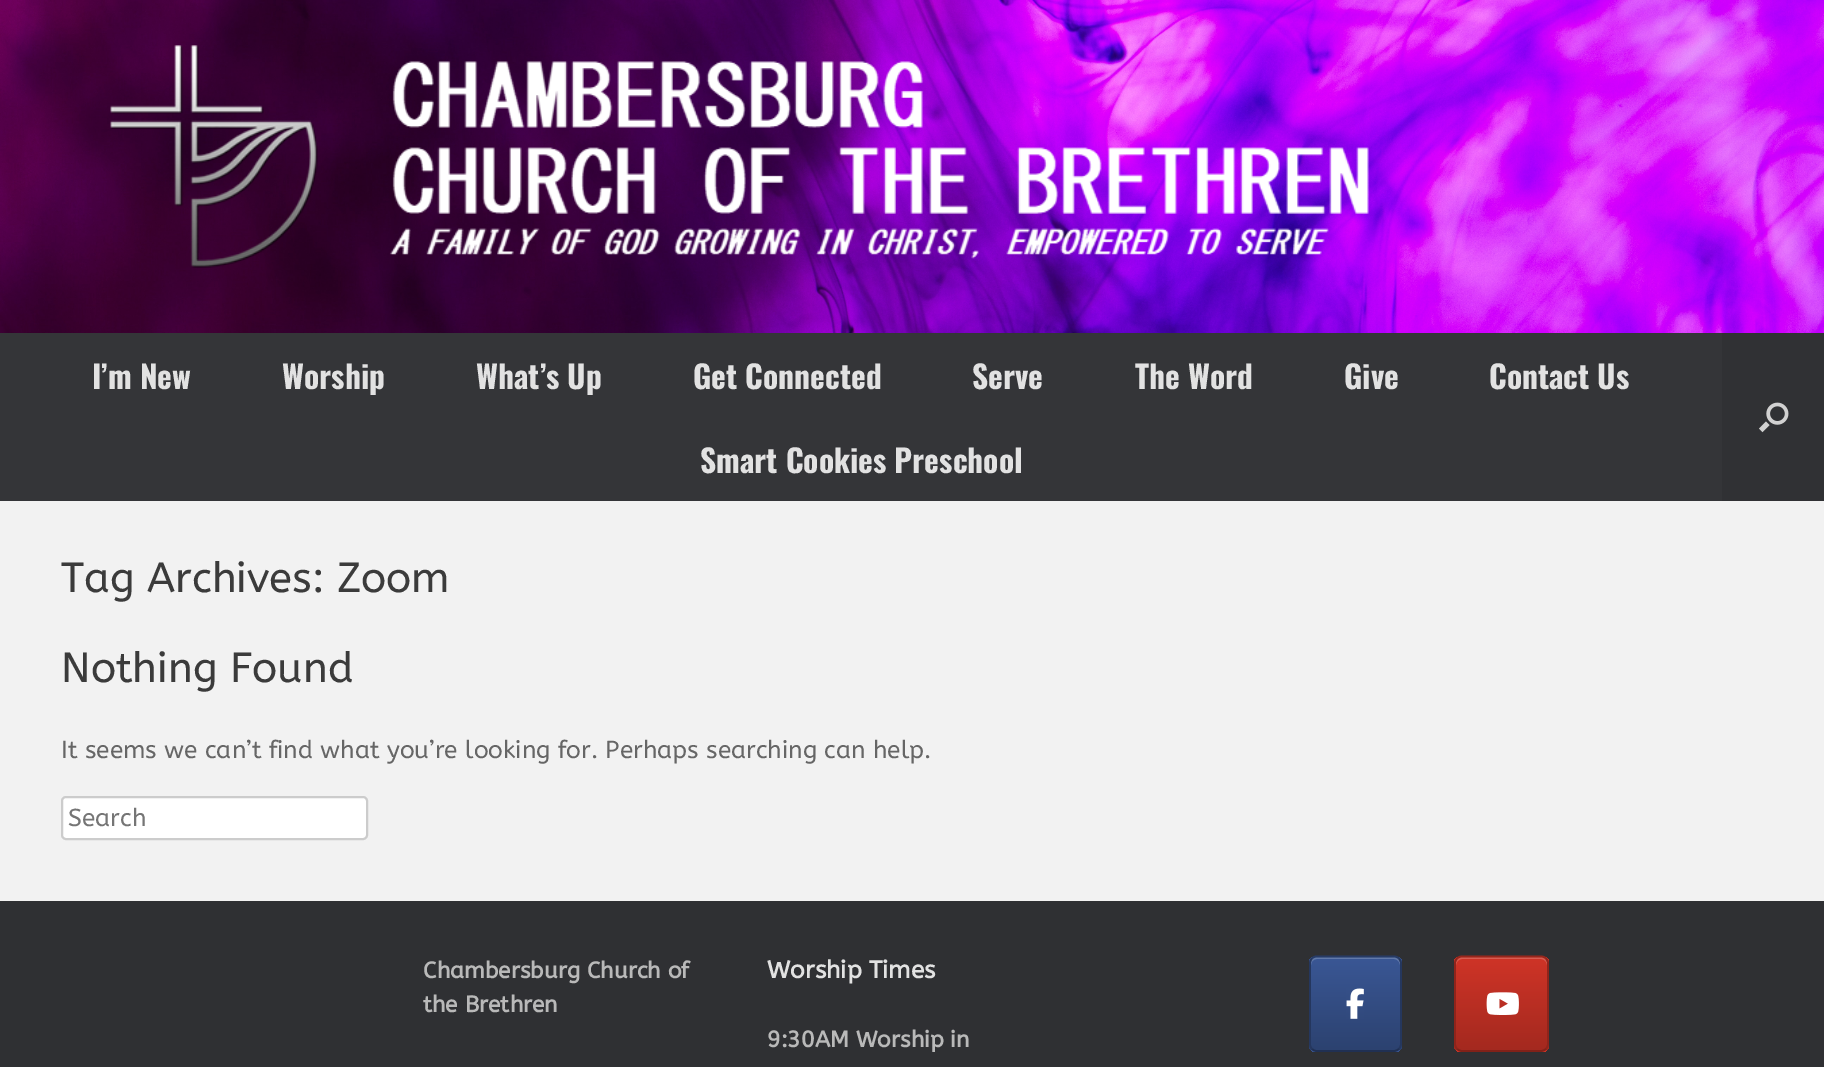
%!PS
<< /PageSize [1824 1067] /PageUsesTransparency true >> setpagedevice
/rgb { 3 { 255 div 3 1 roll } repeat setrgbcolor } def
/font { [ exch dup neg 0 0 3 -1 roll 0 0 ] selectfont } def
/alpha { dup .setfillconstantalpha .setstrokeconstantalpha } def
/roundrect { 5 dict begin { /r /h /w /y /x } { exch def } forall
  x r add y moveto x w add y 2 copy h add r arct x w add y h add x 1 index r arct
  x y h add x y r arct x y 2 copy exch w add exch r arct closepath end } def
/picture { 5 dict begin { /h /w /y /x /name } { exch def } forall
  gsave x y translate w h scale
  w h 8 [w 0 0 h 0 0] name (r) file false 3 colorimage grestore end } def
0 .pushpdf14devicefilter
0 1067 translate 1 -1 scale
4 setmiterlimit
255 255 255 rgb
0 0 1824 1067 rectfill
(img/1.rgb) 0 0 1824 333 picture
(img/2.rgb) 110 45 1259 223 picture
52 53 56 rgb
0 333 1722 168 rectfill
48 49 52 rgb
1722 333 102 168 rectfill
(img/3.rgb) 1759 402 30 31 picture
242 242 242 rgb
0 501 1824 400 rectfill
255 255 255 rgb
62 797 305 42 4 roundrect gsave fill grestore
204 204 204 rgb
2 setlinewidth
stroke
47 48 51 rgb
0 901 1824 166 rectfill
gsave
1309 956 93 96 7 roundrect clip newpath
gsave 1309 957 moveto 1402 957 lineto 1402 1050 lineto 1309 1050 lineto closepath clip newpath
<< /ShadingType 2 /ColorSpace /DeviceRGB /Coords [1311 1050 1311 957] /Extend [true true] /Function << /FunctionType 2 /Domain [0 1] /C0 [0.173 0.259 0.439] /C1 [0.227 0.341 0.584] /N 1 >> >> shfill grestore
gsave 1309 1050 moveto 1402 1050 lineto 1402 1052 lineto 1309 1052 lineto closepath clip newpath
<< /ShadingType 2 /ColorSpace /DeviceRGB /Coords [1311 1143 1311 1050] /Extend [true true] /Function << /FunctionType 2 /Domain [0 1] /C0 [0.173 0.259 0.439] /C1 [0.227 0.341 0.584] /N 1 >> >> shfill grestore
grestore
97 121 170 rgb
1317 959 moveto 1394 959 lineto 1397 959 1400 962 1400 965 curveto 1400 954 1392 957 1382 957 curveto 1329 957 lineto 1319 957 1311 954 1311 965 curveto 1311 962 1313 959 1317 959 curveto closepath fill
39 59 101 rgb
1.8 setlinewidth
1312 958.5 moveto 1313 957 1315 956.5 1316.5 956.5 curveto 1394 956.5 lineto 1396 956.5 1397.5 957 1399 958.5 curveto stroke
37 55 94 rgb
1399 958.5 moveto 1400 959.5 1401 961.5 1401 963 curveto 1401 1044 lineto 1401 1046 1400 1047.5 1399 1049 curveto stroke
32 48 83 rgb
1399 1049 moveto 1397.5 1050 1396 1051 1394 1051 curveto 1316.5 1051 lineto 1315 1051 1313 1050 1312 1049 curveto stroke
37 55 94 rgb
1312 1049 moveto 1310.5 1047.5 1310 1046 1310 1044 curveto 1310 963 lineto 1310 961.5 1310.5 959.5 1312 958.5 curveto stroke
(img/4.rgb) 1346 988 18 31 picture
gsave
1454 956 95 96 7 roundrect clip newpath
gsave 1454 957 moveto 1549 957 lineto 1549 1050 lineto 1454 1050 lineto closepath clip newpath
<< /ShadingType 2 /ColorSpace /DeviceRGB /Coords [1456 1050 1456 957] /Extend [true true] /Function << /FunctionType 2 /Domain [0 1] /C0 [0.643 0.161 0.122] /C1 [0.812 0.204 0.153] /N 1 >> >> shfill grestore
gsave 1454 1050 moveto 1549 1050 lineto 1549 1052 lineto 1454 1052 lineto closepath clip newpath
<< /ShadingType 2 /ColorSpace /DeviceRGB /Coords [1456 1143 1456 1050] /Extend [true true] /Function << /FunctionType 2 /Domain [0 1] /C0 [0.643 0.161 0.122] /C1 [0.812 0.204 0.153] /N 1 >> >> shfill grestore
grestore
0.2 alpha
255 255 255 rgb
1462 959 moveto 1541 959 lineto 1544 959 1547 962 1547 965 curveto 1547 953 1539 957 1528 957 curveto 1474 957 lineto 1464 957 1456 953 1456 965 curveto 1456 962 1459 959 1462 959 curveto closepath fill
1 alpha
151 38 28 rgb
1457 958.5 moveto 1458.5 957 1460 956.5 1462 956.5 curveto 1541 956.5 lineto 1543 956.5 1544.5 957 1546 958.5 curveto stroke
143 36 27 rgb
1546 958.5 moveto 1547 959.5 1548 961.5 1548 963 curveto 1548 1044 lineto 1548 1046 1547 1047.5 1546 1049 curveto stroke
130 33 24 rgb
1546 1049 moveto 1544.5 1050 1543 1051 1541 1051 curveto 1462 1051 lineto 1460 1051 1458.5 1050 1457 1049 curveto stroke
143 36 27 rgb
1457 1049 moveto 1456 1047.5 1455 1046 1455 1044 curveto 1455 963 lineto 1455 961.5 1456 959.5 1457 958.5 curveto stroke
(img/5.rgb) 1486 992 33 23 picture
/Oswald-Bold 31.5 font
226 226 226 rgb
[
  [(I’m New) 92 389]
  [(Worship) 282 389]
  [(What’s Up) 476 389]
  [(Get Connected) 693 389]
  [(Serve) 972 389]
  [(The Word) 1135 389]
  [(Give) 1344 389]
  [(Contact Us) 1489 389]
  [(Smart Cookies Preschool) 700 473]
] { aload pop moveto show } forall
/ABeeZee-Regular 42 font
59 59 59 rgb
61 592 moveto (Tag Archives: Zoom) show
61 682 moveto (Nothing Found) show
/ABeeZee-Regular 24.5 font
102 102 102 rgb
61 758 moveto (It seems we can’t find what you’re looking for. Perhaps searching can help.) show
117 117 117 rgb
68 826 moveto (Search) show
/ABeeZee-Bold 22.75 font
185 185 185 rgb
423 978 moveto (Chambersburg Church of) show
423 1012 moveto (the Brethren) show
/ABeeZee-Bold 24.5 font
226 226 226 rgb
767 978 moveto (Worship Times) show
/ABeeZee-Bold 22.75 font
185 185 185 rgb
767 1047 moveto (9:30AM Worship in) show
.poppdf14devicefilter showpage
